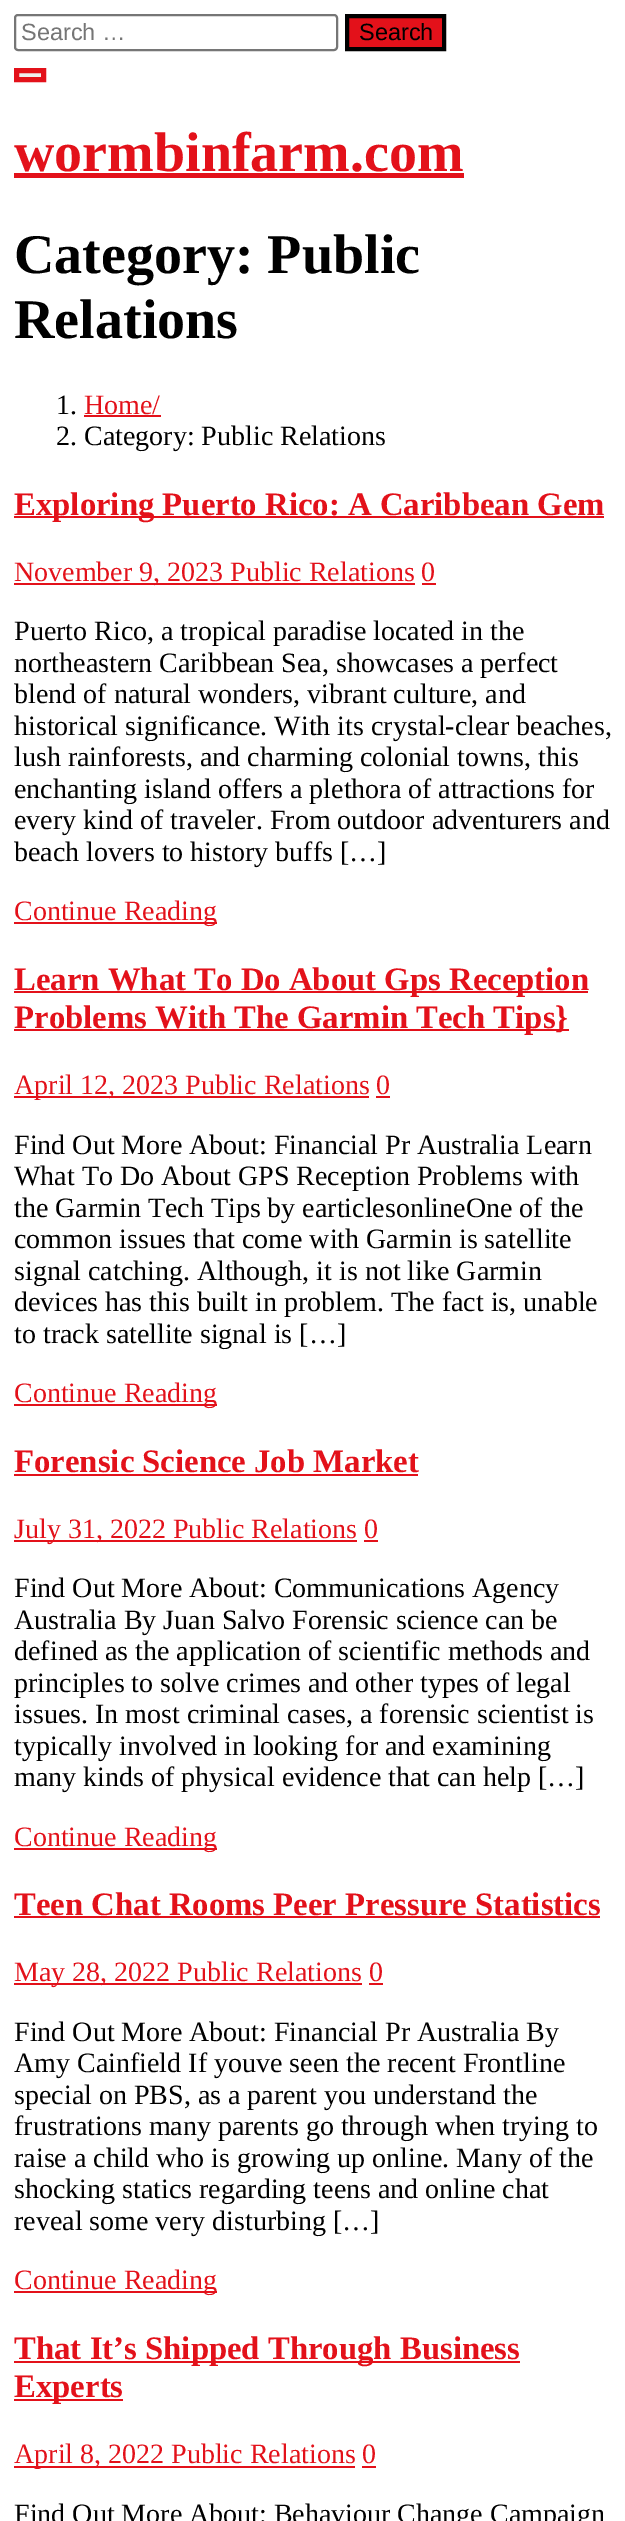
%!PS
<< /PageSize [625 2521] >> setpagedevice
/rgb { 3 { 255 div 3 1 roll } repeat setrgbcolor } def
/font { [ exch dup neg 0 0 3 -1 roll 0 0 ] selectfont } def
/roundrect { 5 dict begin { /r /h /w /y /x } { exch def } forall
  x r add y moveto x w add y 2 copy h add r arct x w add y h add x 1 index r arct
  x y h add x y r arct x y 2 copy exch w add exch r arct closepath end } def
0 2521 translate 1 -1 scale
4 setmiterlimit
255 255 255 rgb
0 0 625 2521 rectfill
118 118 118 rgb
2 setlinewidth
15 15 322 35 3 roundrect stroke
227 17 26 rgb
347 16 moveto 444 16 lineto 444 49 lineto 347 49 lineto closepath gsave fill grestore
0 0 0 rgb
4 setlinewidth
stroke
239 239 239 rgb
16.5 70.5 moveto 43.5 70.5 lineto 43.5 79.5 lineto 16.5 79.5 lineto closepath gsave fill grestore
227 17 26 rgb
5 setlinewidth
stroke
[
  [14 173 450 5 227 17 26]
  [84 415 77 2 227 17 26]
  [14 516 590 2 227 17 26]
  [14 583 401 2 227 17 26]
  [422 583 14 2 227 17 26]
  [14 922 203 2 227 17 26]
  [14 991 574 2 227 17 26]
  [14 1029 555 2 227 17 26]
  [14 1096 355 2 227 17 26]
  [376 1096 14 2 227 17 26]
  [14 1404 203 2 227 17 26]
  [14 1474 404 2 227 17 26]
  [14 1540 343 2 227 17 26]
  [364 1540 14 2 227 17 26]
  [14 1848 203 2 227 17 26]
  [14 1916 586 2 227 17 26]
  [14 1983 348 2 227 17 26]
  [369 1983 14 2 227 17 26]
  [14 2291 203 2 227 17 26]
  [14 2361 506 2 227 17 26]
  [14 2399 109 2 227 17 26]
  [14 2466 341 2 227 17 26]
  [362 2466 14 2 227 17 26]
] { aload pop rgb rectfill } forall
/LiberationSans-Regular 23.5 font
117 117 117 rgb
21 40 moveto (Search …) show
0 0 0 rgb
359 40 moveto (Search) show
/LiberationSerif-Bold 56 font
227 17 26 rgb
14 171 moveto (wormbinfarm.com) show
0 0 0 rgb
14 273 moveto (Category: Public) show
14 338 moveto (Relations) show
/LiberationSerif-Regular 28 font
56 414 moveto (1.) show
227 17 26 rgb
84 414 moveto (Home/) show
0 0 0 rgb
56 445 moveto (2. Category: Public Relations) show
/LiberationSerif-Bold 32.75 font
227 17 26 rgb
14 515 moveto (Exploring Puerto Rico: A Caribbean Gem) show
/LiberationSerif-Regular 28 font
14 581 moveto (November 9, 2023 Public Relations 0) show
0 0 0 rgb
[
  [(Puerto Rico, a tropical paradise located in the) 14 640]
  [(northeastern Caribbean Sea, showcases a perfect) 14 672]
  [(blend of natural wonders, vibrant culture, and) 14 703]
  [(historical significance. With its crystal-clear beaches,) 14 735]
  [(lush rainforests, and charming colonial towns, this) 14 766]
  [(enchanting island offers a plethora of attractions for) 14 798]
  [(every kind of traveler. From outdoor adventurers and) 14 829]
  [(beach lovers to history buffs […]) 14 861]
] { aload pop moveto show } forall
227 17 26 rgb
14 920 moveto (Continue Reading) show
/LiberationSerif-Bold 32.75 font
14 990 moveto (Learn What To Do About Gps Reception) show
14 1028 moveto (Problems With The Garmin Tech Tips}) show
/LiberationSerif-Regular 28 font
14 1094 moveto (April 12, 2023 Public Relations 0) show
0 0 0 rgb
[
  [(Find Out More About: Financial Pr Australia Learn) 14 1154]
  [(What To Do About GPS Reception Problems with) 14 1185]
  [(the Garmin Tech Tips by earticlesonlineOne of the) 14 1217]
  [(common issues that come with Garmin is satellite) 14 1248]
  [(signal catching. Although, it is not like Garmin) 14 1280]
  [(devices has this built in problem. The fact is, unable) 14 1311]
  [(to track satellite signal is […]) 14 1343]
] { aload pop moveto show } forall
227 17 26 rgb
14 1402 moveto (Continue Reading) show
/LiberationSerif-Bold 32.75 font
14 1472 moveto (Forensic Science Job Market) show
/LiberationSerif-Regular 28 font
14 1538 moveto (July 31, 2022 Public Relations 0) show
0 0 0 rgb
[
  [(Find Out More About: Communications Agency) 14 1597]
  [(Australia By Juan Salvo Forensic science can be) 14 1629]
  [(defined as the application of scientific methods and) 14 1660]
  [(principles to solve crimes and other types of legal) 14 1692]
  [(issues. In most criminal cases, a forensic scientist is) 14 1723]
  [(typically involved in looking for and examining) 14 1755]
  [(many kinds of physical evidence that can help […]) 14 1786]
] { aload pop moveto show } forall
227 17 26 rgb
14 1846 moveto (Continue Reading) show
/LiberationSerif-Bold 32.75 font
14 1915 moveto (Teen Chat Rooms Peer Pressure Statistics) show
/LiberationSerif-Regular 28 font
14 1981 moveto (May 28, 2022 Public Relations 0) show
0 0 0 rgb
[
  [(Find Out More About: Financial Pr Australia By) 14 2041]
  [(Amy Cainfield If youve seen the recent Frontline) 14 2072]
  [(special on PBS, as a parent you understand the) 14 2104]
  [(frustrations many parents go through when trying to) 14 2135]
  [(raise a child who is growing up online. Many of the) 14 2167]
  [(shocking statics regarding teens and online chat) 14 2198]
  [(reveal some very disturbing […]) 14 2230]
] { aload pop moveto show } forall
227 17 26 rgb
14 2289 moveto (Continue Reading) show
/LiberationSerif-Bold 32.75 font
14 2359 moveto (That It’s Shipped Through Business) show
14 2397 moveto (Experts) show
/LiberationSerif-Regular 28 font
14 2463 moveto (April 8, 2022 Public Relations 0) show
0 0 0 rgb
14 2523 moveto (Find Out More About: Behaviour Change Campaign) show
showpage
